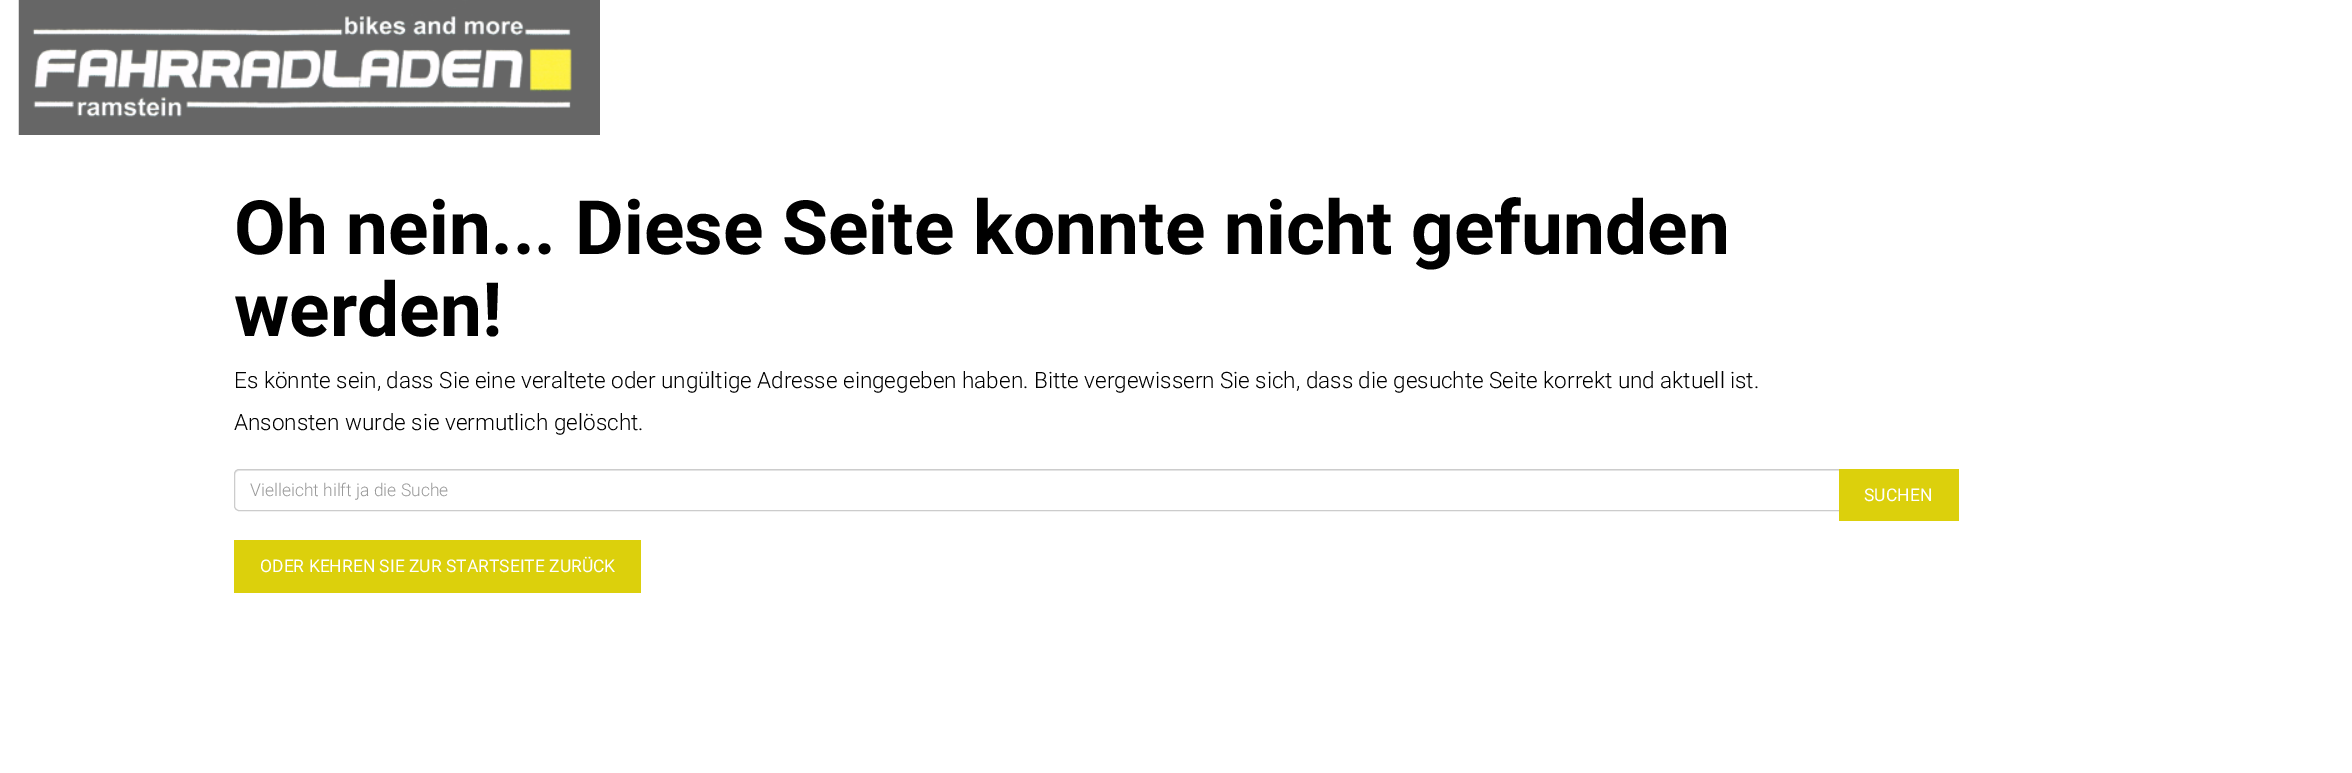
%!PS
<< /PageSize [2352 773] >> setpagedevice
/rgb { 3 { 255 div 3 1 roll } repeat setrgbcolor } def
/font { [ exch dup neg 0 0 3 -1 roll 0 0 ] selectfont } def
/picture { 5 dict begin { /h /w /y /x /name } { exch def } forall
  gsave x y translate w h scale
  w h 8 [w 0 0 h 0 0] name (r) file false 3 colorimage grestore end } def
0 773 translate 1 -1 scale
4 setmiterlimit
255 255 255 rgb
0 0 2352 773 rectfill
(img/1.rgb) 18 0 582 135 picture
236 236 236 rgb
239 471 moveto 1839 471 lineto 1839 470 lineto 239 470 lineto 236 470 235 472 235 475 curveto 235 473 237 471 239 471 curveto closepath fill
204 204 204 rgb
239 469.5 moveto 1839.5 469.5 lineto 1839.5 510.5 lineto 239 510.5 lineto 236.5 510.5 234.5 508.5 234.5 506 curveto 234.5 474 lineto 234.5 471.5 236.5 469.5 239 469.5 curveto closepath stroke
220 208 12 rgb
1839 469 120 52 rectfill
234 540 407 53 rectfill
/Roboto-Bold 75 font
0 0 0 rgb
234 254 moveto (Oh nein... Diese Seite konnte nicht gefunden) show
234 336 moveto (werden!) show
/Roboto-Light 22.5 font
234 388 moveto (Es könnte sein, dass Sie eine veraltete oder ungültige Adresse eingegeben haben. Bitte vergewissern Sie sich, dass die gesuchte Seite korrekt und aktuell ist.) show
234 430 moveto (Ansonsten wurde sie vermutlich gelöscht.) show
/Roboto-Light 17.5 font
153 153 153 rgb
250 496 moveto (Vielleicht hilft ja die Suche) show
/Roboto-Regular 17.5 font
255 255 255 rgb
1864 501 moveto (SUCHEN) show
260 572 moveto (ODER KEHREN SIE ZUR STARTSEITE ZURÜCK) show
showpage
